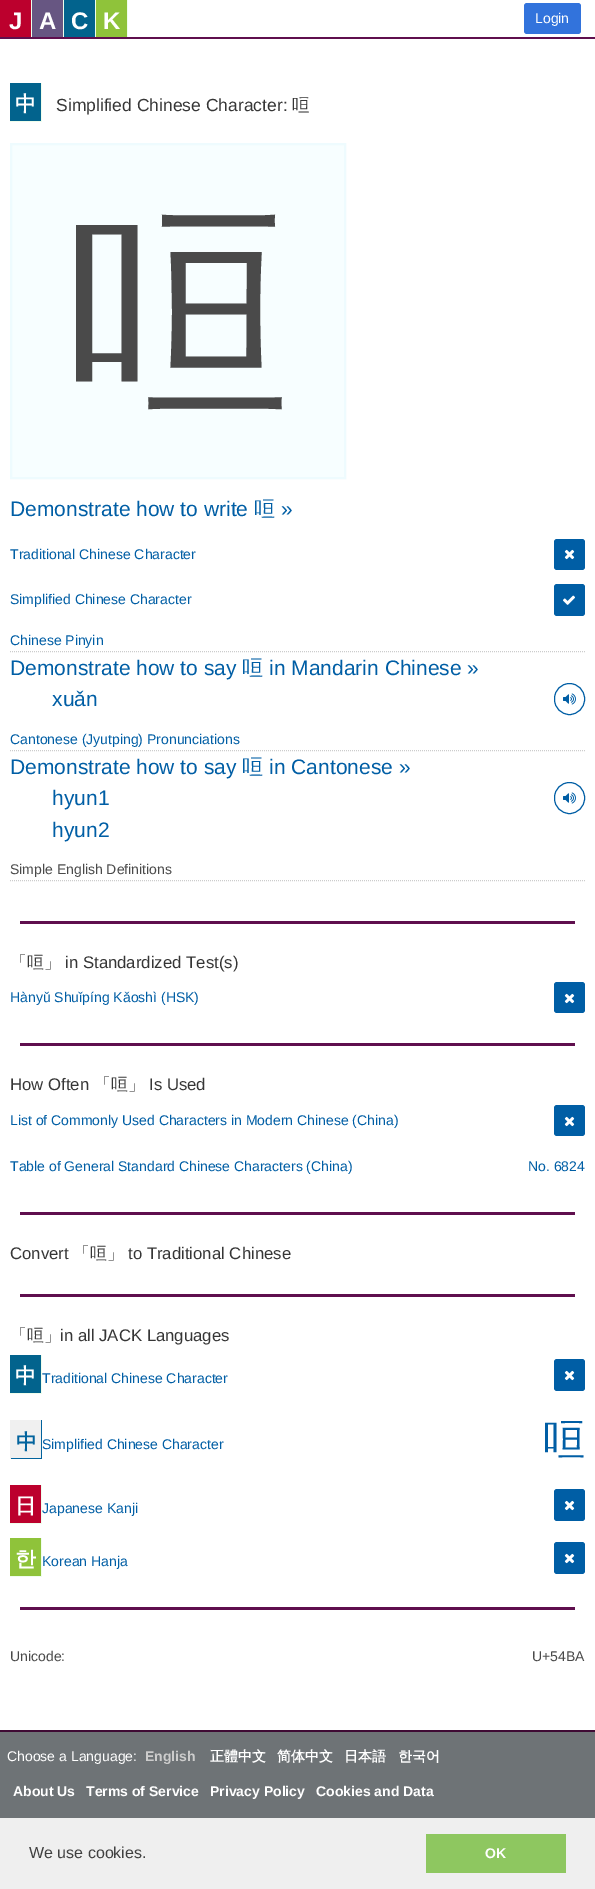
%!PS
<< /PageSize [595 1889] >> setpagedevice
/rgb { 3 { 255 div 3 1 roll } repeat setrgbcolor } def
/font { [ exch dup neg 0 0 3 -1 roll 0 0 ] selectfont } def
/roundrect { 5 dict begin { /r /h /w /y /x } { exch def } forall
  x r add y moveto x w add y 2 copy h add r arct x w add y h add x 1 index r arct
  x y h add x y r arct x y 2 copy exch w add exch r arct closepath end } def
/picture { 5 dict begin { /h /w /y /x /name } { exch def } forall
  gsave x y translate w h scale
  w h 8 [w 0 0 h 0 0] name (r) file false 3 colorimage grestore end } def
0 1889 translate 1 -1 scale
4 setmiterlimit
255 255 255 rgb
0 0 595 1889 rectfill
[
  [0 37 595 2 95 15 78]
  [0 0 31 37 188 0 45]
  [31 0 1 37 239 254 236]
  [32 0 31 37 103 86 130]
  [63 0 1 37 239 254 236]
  [64 0 31 37 2 99 141]
  [95 0 1 37 239 254 236]
  [96 0 31 37 143 195 58]
  [127 0 1 37 239 254 236]
] { aload pop rgb rectfill } forall
50 115 220 rgb
524 3 57 31 3 roundrect fill
[
  [10 83 31 38 2 99 141]
  [41 83 1 39 239 254 236]
  [10 121 32 1 239 254 236]
] { aload pop rgb rectfill } forall
247 254 255 rgb
11 144 moveto 345 144 lineto 345 478 lineto 11 478 lineto closepath gsave fill grestore
238 251 254 rgb
2 setlinewidth
stroke
0 94 165 rgb
554 539 31 31 3 roundrect fill
(img/1.rgb) 564 549 11 11 picture
554 584 31 32 3 roundrect fill
(img/2.rgb) 563 595 12 10 picture
204 204 204 rgb
1 setlinewidth
[1 1] 0 setdash
10 651.5 moveto 585 651.5 lineto stroke
0 94 165 rgb
[] 0 setdash
554.5 683.5 30 31 15 roundrect stroke
(img/3.rgb) 563 693 13 12 picture
204 204 204 rgb
[1 1] 0 setdash
10 750.5 moveto 585 750.5 lineto stroke
0 94 165 rgb
[] 0 setdash
554.5 782.5 30 31 15 roundrect stroke
(img/3.rgb) 563 792 13 12 picture
204 204 204 rgb
[1 1] 0 setdash
10 880.5 moveto 585 880.5 lineto stroke
95 15 78 rgb
20 921 555 3 rectfill
0 94 165 rgb
554 982 31 31 3 roundrect fill
(img/1.rgb) 564 993 11 11 picture
95 15 78 rgb
20 1043 555 3 rectfill
0 94 165 rgb
554 1105 31 31 3 roundrect fill
(img/1.rgb) 564 1116 11 11 picture
[
  [20 1212 555 3 95 15 78]
  [20 1294 555 3 95 15 78]
  [10 1355 31 38 2 99 141]
  [41 1355 1 39 239 254 236]
  [10 1393 32 1 239 254 236]
] { aload pop rgb rectfill } forall
0 94 165 rgb
554 1359 31 32 3 roundrect fill
(img/1.rgb) 564 1370 11 11 picture
[
  [11 1420 30 38 240 240 240]
  [41 1420 1 39 2 99 157]
  [10 1458 32 1 2 99 157]
  [10 1420 1 39 240 240 240]
  [10 1485 31 38 188 0 45]
  [41 1485 1 39 239 254 236]
  [10 1523 32 1 239 254 236]
] { aload pop rgb rectfill } forall
0 94 165 rgb
554 1489 31 32 3 roundrect fill
(img/1.rgb) 564 1500 11 11 picture
[
  [10 1538 31 38 143 195 58]
  [41 1538 1 39 239 254 236]
  [10 1576 32 1 239 254 236]
] { aload pop rgb rectfill } forall
0 94 165 rgb
554 1542 31 32 3 roundrect fill
(img/1.rgb) 564 1553 11 11 picture
[
  [20 1607 555 3 95 15 78]
  [0 1732 595 86 110 115 118]
  [0 1730 595 2 63 10 52]
  [0 1818 595 71 239 239 239]
  [426 1834 140 39 142 199 96]
] { aload pop rgb rectfill } forall
/LiberationSans-Bold 24 font
255 255 255 rgb
[
  [(J) 9 29]
  [(A) 39 29]
  [(C) 71 29]
  [(K) 103 29]
] { aload pop moveto show } forall
/LiberationSans-Regular 14 font
535 23 moveto (Login) show
/WenQuanYiZenHei-Bold 21 font
15 111 moveto (中) show
/LiberationSans-Regular 17.5 font
54 54 54 rgb
56 111 moveto (Simplified Chinese Character:) show
/WenQuanYiZenHei-Medium 17.5 font
292 111 moveto (咺) show
/WenQuanYiZenHei-Medium 224 font
74 74 74 rgb
66 391 moveto (咺) show
/LiberationSans-Regular 21 font
0 94 165 rgb
10 516 moveto (Demonstrate how to write) show
/WenQuanYiZenHei-Medium 21 font
254 516 moveto (咺) show
/LiberationSans-Regular 21 font
281 516 moveto (») show
/LiberationSans-Regular 14 font
[
  [(Traditional Chinese Character) 10 559]
  [(Simplified Chinese Character) 10 604]
  [(Chinese Pinyin) 10 645]
] { aload pop moveto show } forall
/LiberationSans-Regular 21 font
10 675 moveto (Demonstrate how to say) show
/WenQuanYiZenHei-Medium 21 font
242 675 moveto (咺) show
/LiberationSans-Regular 21 font
269 675 moveto (in Mandarin Chinese ») show
52 706 moveto (xuǎn) show
/LiberationSans-Regular 14 font
10 744 moveto (Cantonese \(Jyutping\) Pronunciations) show
/LiberationSans-Regular 21 font
10 774 moveto (Demonstrate how to say) show
/WenQuanYiZenHei-Medium 21 font
242 774 moveto (咺) show
/LiberationSans-Regular 21 font
[
  [(in Cantonese ») 269 774]
  [(hyun1) 52 805]
  [(hyun2) 52 837]
] { aload pop moveto show } forall
/LiberationSans-Regular 14 font
74 74 74 rgb
10 874 moveto (Simple English Definitions) show
/WenQuanYiZenHei-Medium 16.75 font
54 54 54 rgb
10 968 moveto (「咺」) show
/LiberationSans-Regular 16.75 font
65 968 moveto (in Standardized Test\(s\)) show
/LiberationSans-Regular 14 font
0 94 165 rgb
10 1002 moveto (Hànyǔ Shuǐpíng Kǎoshì \(HSK\)) show
/LiberationSans-Regular 16.75 font
54 54 54 rgb
10 1090 moveto (How Often) show
/WenQuanYiZenHei-Medium 16.75 font
94 1090 moveto (「咺」) show
/LiberationSans-Regular 16.75 font
149 1090 moveto (Is Used) show
/LiberationSans-Regular 14 font
0 94 165 rgb
[
  [(List of Commonly Used Characters in Modern Chinese \(China\)) 10 1125]
  [(Table of General Standard Chinese Characters \(China\)) 10 1171]
  [(No. 6824) 528 1171]
] { aload pop moveto show } forall
/LiberationSans-Regular 16.75 font
54 54 54 rgb
10 1259 moveto (Convert) show
/WenQuanYiZenHei-Medium 16.75 font
73 1259 moveto (「咺」) show
/LiberationSans-Regular 16.75 font
128 1259 moveto (to Traditional Chinese) show
/WenQuanYiZenHei-Medium 16.75 font
10 1341 moveto (「咺」) show
/LiberationSans-Regular 16.75 font
60 1341 moveto (in all JACK Languages) show
/WenQuanYiZenHei-Bold 21 font
255 255 255 rgb
15 1383 moveto (中) show
/LiberationSans-Regular 14 font
0 94 165 rgb
42 1383 moveto (Traditional Chinese Character) show
/WenQuanYiZenHei-Bold 21 font
2 99 157 rgb
16 1449 moveto (中) show
/LiberationSans-Regular 14 font
0 94 165 rgb
42 1449 moveto (Simplified Chinese Character) show
/WenQuanYiZenHei-Medium 42 font
543 1454 moveto (咺) show
/WenQuanYiZenHei-Bold 21 font
255 255 255 rgb
15 1513 moveto (日) show
/LiberationSans-Regular 14 font
0 94 165 rgb
42 1513 moveto (Japanese Kanji) show
/WenQuanYiZenHei-Bold 21 font
255 255 255 rgb
15 1566 moveto (한) show
/LiberationSans-Regular 14 font
0 94 165 rgb
42 1566 moveto (Korean Hanja) show
74 74 74 rgb
10 1661 moveto (Unicode:) show
532 1661 moveto (U+54BA) show
255 255 255 rgb
7 1761 moveto (Choose a Language:) show
/LiberationSans-Bold 14 font
204 204 204 rgb
145 1761 moveto (English) show
/WenQuanYiZenHei-Bold 14 font
255 255 255 rgb
[
  [(正體中文) 210 1761]
  [(简体中文) 277 1761]
  [(日本語) 344 1761]
  [(한국어) 398 1761]
] { aload pop moveto show } forall
/LiberationSans-Bold 14 font
[
  [(About Us) 13 1796]
  [(Terms of Service) 86 1796]
  [(Privacy Policy) 210 1796]
  [(Cookies and Data) 316 1796]
] { aload pop moveto show } forall
/LiberationSans-Regular 16 font
64 64 64 rgb
29 1858 moveto (We use cookies.) show
/LiberationSans-Bold 14 font
255 255 255 rgb
485 1858 moveto (OK) show
showpage
